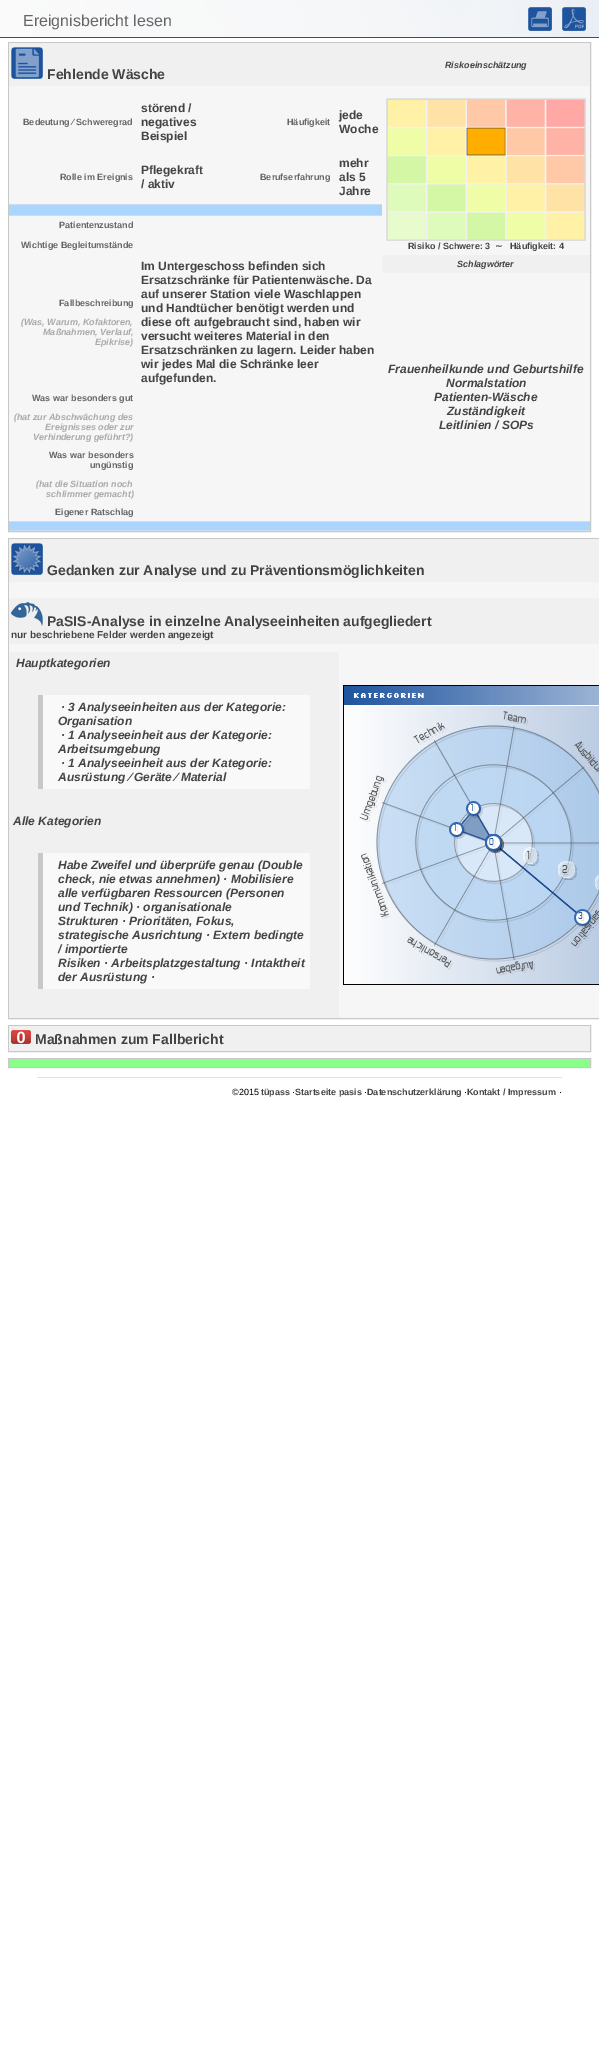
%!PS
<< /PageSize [599 2060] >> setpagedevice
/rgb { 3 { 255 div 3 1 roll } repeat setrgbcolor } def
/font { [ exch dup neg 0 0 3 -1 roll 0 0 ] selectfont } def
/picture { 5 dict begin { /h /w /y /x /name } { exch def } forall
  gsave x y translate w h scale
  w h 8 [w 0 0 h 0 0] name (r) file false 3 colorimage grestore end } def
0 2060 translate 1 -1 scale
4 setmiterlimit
255 255 255 rgb
0 0 599 2060 rectfill
(img/1.rgb) 0 0 599 37 picture
30 84 158 rgb
0 37 599 1 rectfill
(img/2.rgb) 528 7 24 24 picture
(img/3.rgb) 562 7 24 24 picture
200 200 200 rgb
8.5 42.5 582 489 rectstroke
240 240 240 rgb
9 43 581 43 rectfill
(img/4.rgb) 11 47 32 32 picture
[
  [9 86 581 8 246 246 246]
  [9 94 373 55 246 246 246]
  [382 94 208 161 246 246 246]
] { aload pop rgb rectfill } forall
(img/5.rgb) 386 98 200 143 picture
[
  [9 149 373 55 246 246 246]
  [9 205 373 10 170 213 255]
  [9 204 373 1 204 221 238]
  [9 215 373 1 204 221 238]
  [9 216 373 19 246 246 246]
  [9 235 373 20 246 246 246]
  [9 255 373 134 246 246 246]
  [382 255 208 18 240 240 240]
  [9 389 373 57 246 246 246]
  [382 273 208 248 246 246 246]
  [9 446 373 57 246 246 246]
  [9 503 373 18 246 246 246]
  [9 522 581 8 170 213 255]
  [9 521 581 1 204 221 238]
  [9 530 581 1 204 221 238]
] { aload pop rgb rectfill } forall
200 200 200 rgb
8.5 538.5 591 480 rectstroke
240 240 240 rgb
9 539 590 43 rectfill
(img/6.rgb) 11 543 32 32 picture
246 246 246 rgb
9 582 590 16 rectfill
240 240 240 rgb
9 598 590 46 rectfill
(img/7.rgb) 11 602 32 24 picture
[
  [9 644 590 8 246 246 246]
  [9 652 330 366 240 240 240]
  [43 695 267 94 249 249 249]
  [38 695 5 94 200 200 200]
  [43 853 267 136 249 249 249]
  [38 853 5 136 200 200 200]
  [339 652 260 366 246 246 246]
] { aload pop rgb rectfill } forall
(img/8.rgb) 343 685 256 300 picture
200 200 200 rgb
8.5 1025.5 582 26 rectstroke
240 240 240 rgb
9 1026 581 25 rectfill
(img/9.rgb) 11 1030 20 14 picture
200 200 200 rgb
8.5 1058.5 582 9 rectstroke
136 255 136 rgb
9 1059 581 8 rectfill
225 225 225 rgb
37 1077 525 1 rectfill
/LiberationSans-Regular 16 font
102 102 102 rgb
23 26 moveto (Ereignisbericht lesen) show
/LiberationSans-BoldItalic 9 font
68 68 68 rgb
445 68 moveto (Riskoeinschätzung) show
/LiberationSans-Bold 14 font
47 79 moveto (Fehlende Wäsche) show
/LiberationSans-Bold 9 font
102 102 102 rgb
23 125 moveto (Bedeutung ⁄ Schweregrad) show
/LiberationSans-Bold 12 font
68 68 68 rgb
[
  [(störend /) 141 112]
  [(negatives) 141 126]
  [(Beispiel) 141 140]
] { aload pop moveto show } forall
/LiberationSans-Bold 9 font
102 102 102 rgb
287 125 moveto (Häufigkeit) show
/LiberationSans-Bold 12 font
68 68 68 rgb
339 119 moveto (jede) show
339 133 moveto (Woche) show
/LiberationSans-Bold 9 font
408 249 moveto (Risiko / Schwere: 3) show
/DejaVuSans-Bold 9 font
495 249 moveto (∼) show
/LiberationSans-Bold 9 font
510 249 moveto (Häufigkeit: 4) show
102 102 102 rgb
60 180 moveto (Rolle im Ereignis) show
/LiberationSans-Bold 12 font
68 68 68 rgb
141 174 moveto (Pflegekraft) show
141 188 moveto (/ aktiv) show
/LiberationSans-Bold 9 font
102 102 102 rgb
260 180 moveto (Berufserfahrung) show
/LiberationSans-Bold 12 font
68 68 68 rgb
[
  [(mehr) 339 167]
  [(als 5) 339 181]
  [(Jahre) 339 195]
] { aload pop moveto show } forall
/LiberationSans-Bold 9 font
102 102 102 rgb
[
  [(Patientenzustand) 59 228]
  [(Wichtige Begleitumstände) 21 248]
  [(Fallbeschreibung) 59 306]
] { aload pop moveto show } forall
/LiberationSans-BoldItalic 9 font
170 170 170 rgb
[
  [(\(Was, Warum, Kofaktoren,) 21 325]
  [(Maßnahmen, Verlauf,) 43 335]
  [(Epikrise\)) 95 345]
] { aload pop moveto show } forall
/LiberationSans-Bold 12 font
68 68 68 rgb
[
  [(Im Untergeschoss befinden sich) 141 270]
  [(Ersatzschränke für Patientenwäsche. Da) 141 284]
  [(auf unserer Station viele Waschlappen) 141 298]
  [(und Handtücher benötigt werden und) 141 312]
  [(diese oft aufgebraucht sind, haben wir) 141 326]
  [(versucht weiteres Material in den) 141 340]
  [(Ersatzschränken zu lagern. Leider haben) 141 354]
  [(wir jedes Mal die Schränke leer) 141 368]
  [(aufgefunden.) 141 382]
] { aload pop moveto show } forall
/LiberationSans-BoldItalic 9 font
457 267 moveto (Schlagwörter) show
/LiberationSans-Bold 9 font
102 102 102 rgb
32 401 moveto (Was war besonders gut) show
/LiberationSans-BoldItalic 9 font
170 170 170 rgb
[
  [(\(hat zur Abschwächung des) 14 420]
  [(Ereignisses oder zur) 45 430]
  [(Verhinderung geführt?\)) 33 440]
] { aload pop moveto show } forall
/LiberationSans-BoldItalic 12 font
68 68 68 rgb
[
  [(Frauenheilkunde und Geburtshilfe) 388 373]
  [(Normalstation) 446 387]
  [(Patienten-Wäsche) 434 401]
  [(Zuständigkeit) 447 415]
  [(Leitlinien / SOPs) 439 429]
] { aload pop moveto show } forall
/LiberationSans-Bold 9 font
102 102 102 rgb
49 458 moveto (Was war besonders) show
90 468 moveto (ungünstig) show
/LiberationSans-BoldItalic 9 font
170 170 170 rgb
36 487 moveto (\(hat die Situation noch) show
46 497 moveto (schlimmer gemacht\)) show
/LiberationSans-Bold 9 font
102 102 102 rgb
55 515 moveto (Eigener Ratschlag) show
/LiberationSans-Bold 14 font
68 68 68 rgb
47 575 moveto (Gedanken zur Analyse und zu Präventionsmöglichkeiten) show
47 626 moveto (PaSIS-Analyse in einzelne Analyseeinheiten aufgegliedert) show
/LiberationSans-Bold 10 font
11 638 moveto (nur beschriebene Felder werden angezeigt) show
/LiberationSans-BoldItalic 12 font
[
  [(Hauptkategorien) 16 667]
  [(· 3 Analyseeinheiten aus der Kategorie:) 61 711]
  [(Organisation) 58 725]
  [(· 1 Analyseeinheit aus der Kategorie:) 61 739]
  [(Arbeitsumgebung) 58 753]
  [(· 1 Analyseeinheit aus der Kategorie:) 61 767]
  [(Ausrüstung ⁄ Geräte ⁄ Material) 58 781]
  [(Alle Kategorien) 13 825]
  [(Habe Zweifel und überprüfe genau \(Double) 58 869]
  [(check, nie etwas annehmen\) · Mobilisiere) 58 883]
  [(alle verfügbaren Ressourcen \(Personen) 58 897]
  [(und Technik\) · organisationale) 58 911]
  [(Strukturen · Prioritäten, Fokus,) 58 925]
  [(strategische Ausrichtung · Extern bedingte) 58 939]
  [(/ importierte) 58 953]
  [(Risiken · Arbeitsplatzgestaltung · Intaktheit) 58 967]
  [(der Ausrüstung ·) 58 981]
] { aload pop moveto show } forall
/LiberationSans-Bold 14 font
35 1044 moveto (Maßnahmen zum Fallbericht) show
/LiberationSans-Regular 9 font
0 0 0 rgb
232 1095 moveto (©2015) show
/LiberationSans-Bold 9 font
68 68 68 rgb
261 1095 moveto (tüpass) show
/LiberationSans-Regular 9 font
0 0 0 rgb
292 1095 moveto (·) show
/LiberationSans-Bold 9 font
68 68 68 rgb
295 1095 moveto (Startseite pasis) show
/LiberationSans-Regular 9 font
0 0 0 rgb
364 1095 moveto (·) show
/LiberationSans-Bold 9 font
68 68 68 rgb
367 1095 moveto (Datenschutzerklärung) show
/LiberationSans-Regular 9 font
0 0 0 rgb
464 1095 moveto (·) show
/LiberationSans-Bold 9 font
68 68 68 rgb
467 1095 moveto (Kontakt / Impressum) show
/LiberationSans-Regular 9 font
0 0 0 rgb
559 1095 moveto (·) show
showpage
